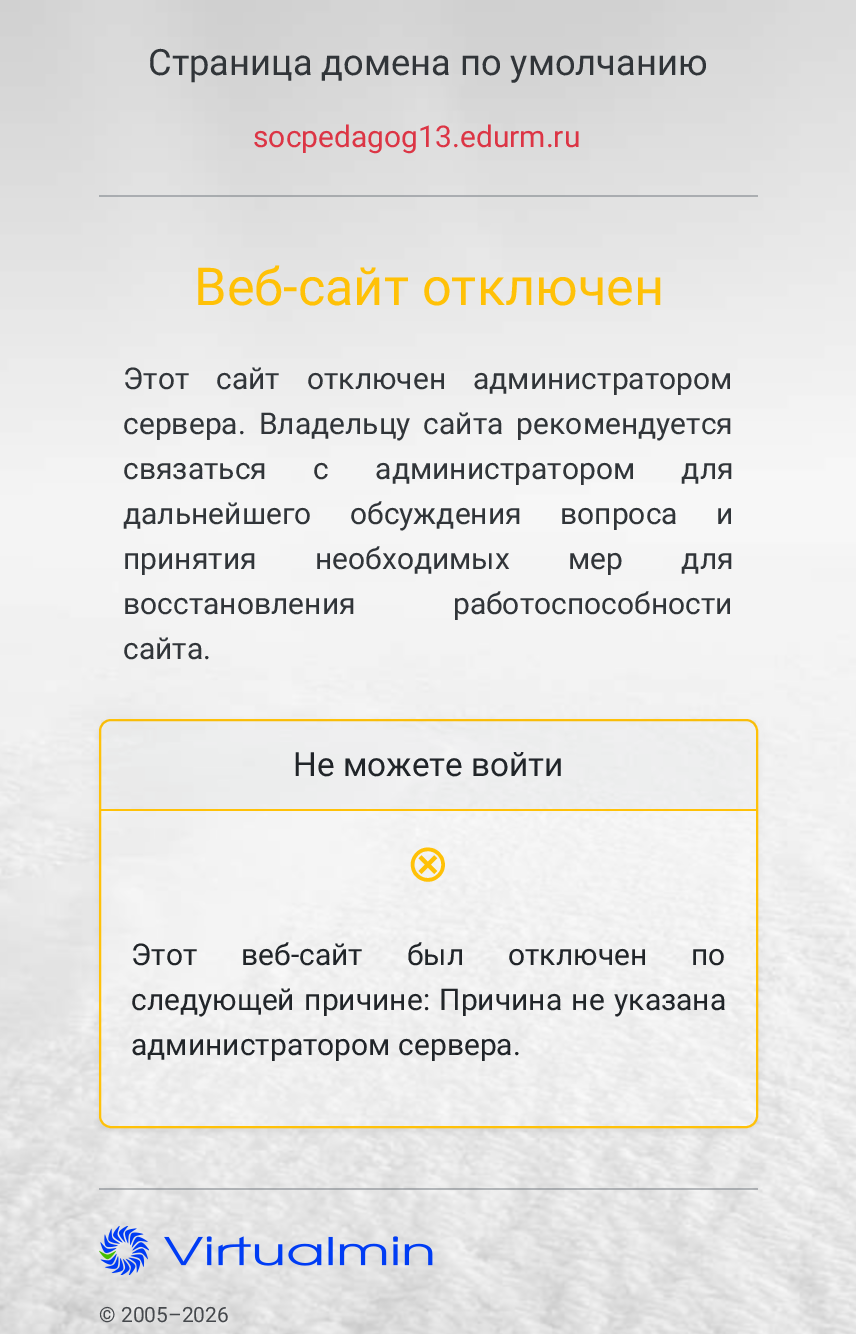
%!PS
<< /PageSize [856 1334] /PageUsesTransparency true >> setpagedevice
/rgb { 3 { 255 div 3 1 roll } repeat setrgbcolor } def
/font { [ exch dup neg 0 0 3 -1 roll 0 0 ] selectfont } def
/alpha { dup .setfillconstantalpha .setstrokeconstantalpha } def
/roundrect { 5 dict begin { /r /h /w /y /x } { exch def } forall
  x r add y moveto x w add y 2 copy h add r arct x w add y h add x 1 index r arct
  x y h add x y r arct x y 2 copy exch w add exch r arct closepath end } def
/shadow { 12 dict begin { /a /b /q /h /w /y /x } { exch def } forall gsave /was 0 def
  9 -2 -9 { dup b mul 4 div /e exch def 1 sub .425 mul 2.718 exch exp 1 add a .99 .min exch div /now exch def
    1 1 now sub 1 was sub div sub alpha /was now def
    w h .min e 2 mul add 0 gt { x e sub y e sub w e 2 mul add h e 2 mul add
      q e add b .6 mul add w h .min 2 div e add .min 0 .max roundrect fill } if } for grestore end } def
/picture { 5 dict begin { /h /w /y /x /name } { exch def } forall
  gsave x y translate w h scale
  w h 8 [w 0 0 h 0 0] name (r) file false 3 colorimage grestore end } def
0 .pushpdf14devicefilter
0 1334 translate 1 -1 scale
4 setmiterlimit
255 255 255 rgb
0 0 856 1334 rectfill
(img/1.rgb) 0 0 856 1334 picture
0.47 alpha
107 114 121 rgb
99 195 659 2 rectfill
gsave
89 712 moveto 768 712 lineto 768 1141 lineto 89 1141 lineto closepath 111 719 moveto 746 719 lineto 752.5 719 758 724.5 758 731 curveto 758 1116 lineto 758 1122.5 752.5 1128 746 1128 curveto 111 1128 lineto 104.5 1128 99 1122.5 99 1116 curveto 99 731 lineto 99 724.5 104.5 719 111 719 curveto closepath eoclip newpath
1 alpha
0 0 0 rgb
99 722 659 409 12 3 0.07 shadow
grestore
0.27 alpha
255 255 255 rgb
100 720 657 407 11 roundrect fill
1 alpha
255 193 7 rgb
2 setlinewidth
100 720 657 407 11 roundrect stroke
0.03 alpha
[
  [101 720 655 89 33 37 41]
] { aload pop rgb rectfill } forall
1 alpha
[
  [101 809 655 2 255 193 7]
] { aload pop rgb rectfill } forall
0.47 alpha
[
  [99 1188 659 2 107 114 121]
] { aload pop rgb rectfill } forall
1 alpha
(img/2.rgb) 99 1226 50 49 picture
(img/3.rgb) 164 1236 269 30 picture
/Roboto-Regular 36.3 font
49 53 57 rgb
148 75 moveto (Страница домена по умолчанию) show
/Roboto-Regular 30 font
220 53 69 rgb
253 147 moveto (socpedagog13.edurm.ru) show
/Roboto-Regular 52.25 font
255 193 7 rgb
194 305 moveto (Веб-сайт отключен) show
/Roboto-Regular 30 font
49 53 57 rgb
123 389 moveto 19.5 0 32 (Этот сайт отключен администратором) widthshow
123 434 moveto 5.5 0 32 (сервера. Владельцу сайта рекомендуется) widthshow
123 479 moveto 39 0 32 (связаться с администратором для) widthshow
123 524 moveto 31 0 32 (дальнейшего обсуждения вопроса и) widthshow
123 569 moveto 51 0 32 (принятия необходимых мер для) widthshow
123 614 moveto 90 0 32 (восстановления работоспособности) widthshow
123 659 moveto (сайта.) show
/Roboto-Regular 33.25 font
33 37 41 rgb
293 776 moveto (Не можете войти) show
/DejaVuSans-Regular 52.25 font
255 193 7 rgb
406 881 moveto (⊗) show
/Roboto-Regular 30 font
33 37 41 rgb
131 965 moveto 36.5 0 32 (Этот веб-сайт был отключен по) widthshow
131 1010 moveto 2 0 32 (следующей причине: Причина не указана) widthshow
131 1055 moveto (администратором сервера.) show
/Roboto-Regular 21 font
69 72 76 rgb
99 1322 moveto (© 2005–2026) show
.poppdf14devicefilter showpage
